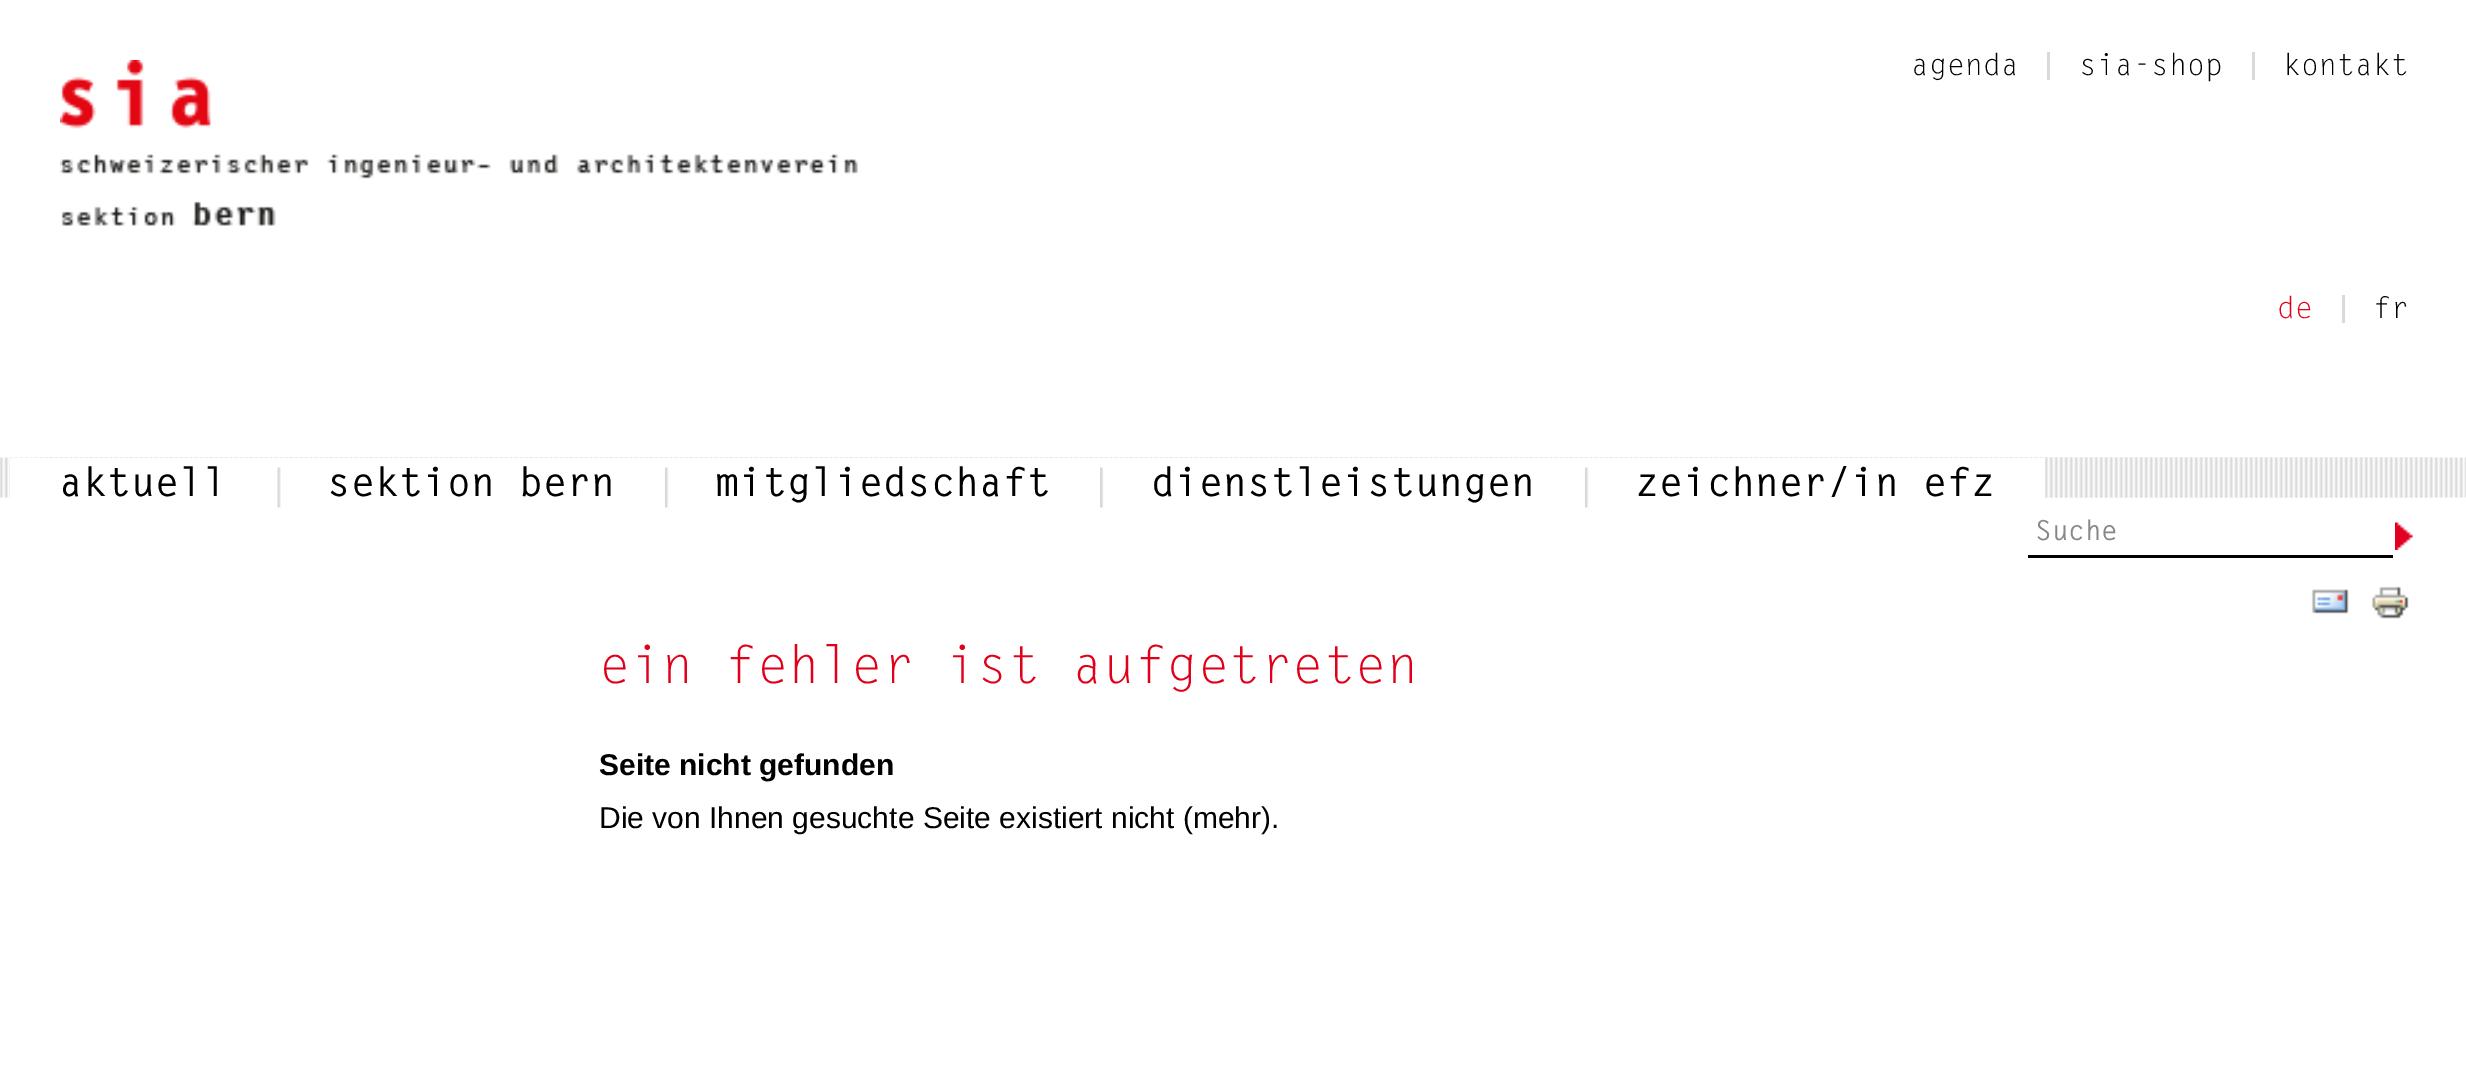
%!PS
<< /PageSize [2466 1082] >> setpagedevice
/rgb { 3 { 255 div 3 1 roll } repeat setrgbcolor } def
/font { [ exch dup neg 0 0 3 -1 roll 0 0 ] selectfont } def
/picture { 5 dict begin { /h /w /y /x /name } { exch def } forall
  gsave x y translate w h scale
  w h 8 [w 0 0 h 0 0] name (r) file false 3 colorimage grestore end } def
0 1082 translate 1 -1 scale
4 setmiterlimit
255 255 255 rgb
0 0 2466 1082 rectfill
(img/1.rgb) 0 457 2466 41 picture
(img/2.rgb) 35 457 2398 41 picture
(img/3.rgb) 60 60 798 166 picture
[
  [2047 52 3 28 217 217 217]
  [2252 52 3 28 217 217 217]
  [2342 295 3 28 217 217 217]
  [10 458 2035 40 255 255 255]
] { aload pop rgb rectfill } forall
(img/4.rgb) 277 467 4 41 picture
(img/5.rgb) 665 467 4 41 picture
(img/6.rgb) 1100 467 4 41 picture
(img/5.rgb) 1585 467 4 41 picture
0 0 0 rgb
2028 555 365 3 rectfill
(img/7.rgb) 2395 522 18 28 picture
(img/8.rgb) 2311 589 38 25 picture
(img/9.rgb) 2371 586 38 33 picture
/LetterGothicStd-Regular 30 font
[
  [(agenda) 1911 75]
  [(sia-shop) 2079 75]
  [(kontakt) 2283 75]
] { aload pop moveto show } forall
225 0 25 rgb
2277 318 moveto (de) show
0 0 0 rgb
2373 318 moveto (fr) show
/LetterGothicStd-Bold 40 font
[
  [(aktuell) 59 496]
  [(sektion bern) 327 496]
  [(mitgliedschaft) 715 496]
  [(dienstleistungen) 1151 496]
  [(zeichner/in efz) 1635 496]
] { aload pop moveto show } forall
/LetterGothicStd-Bold 27.5 font
136 136 136 rgb
2035 540 moveto (Suche) show
/LetterGothicStd-Regular 52.5 font
225 0 25 rgb
599 683 moveto (ein fehler ist aufgetreten) show
/LiberationSans-Bold 30 font
0 0 0 rgb
599 775 moveto (Seite nicht gefunden) show
/LiberationSans-Regular 30 font
599 828 moveto (Die von Ihnen gesuchte Seite existiert nicht \(mehr\).) show
showpage
